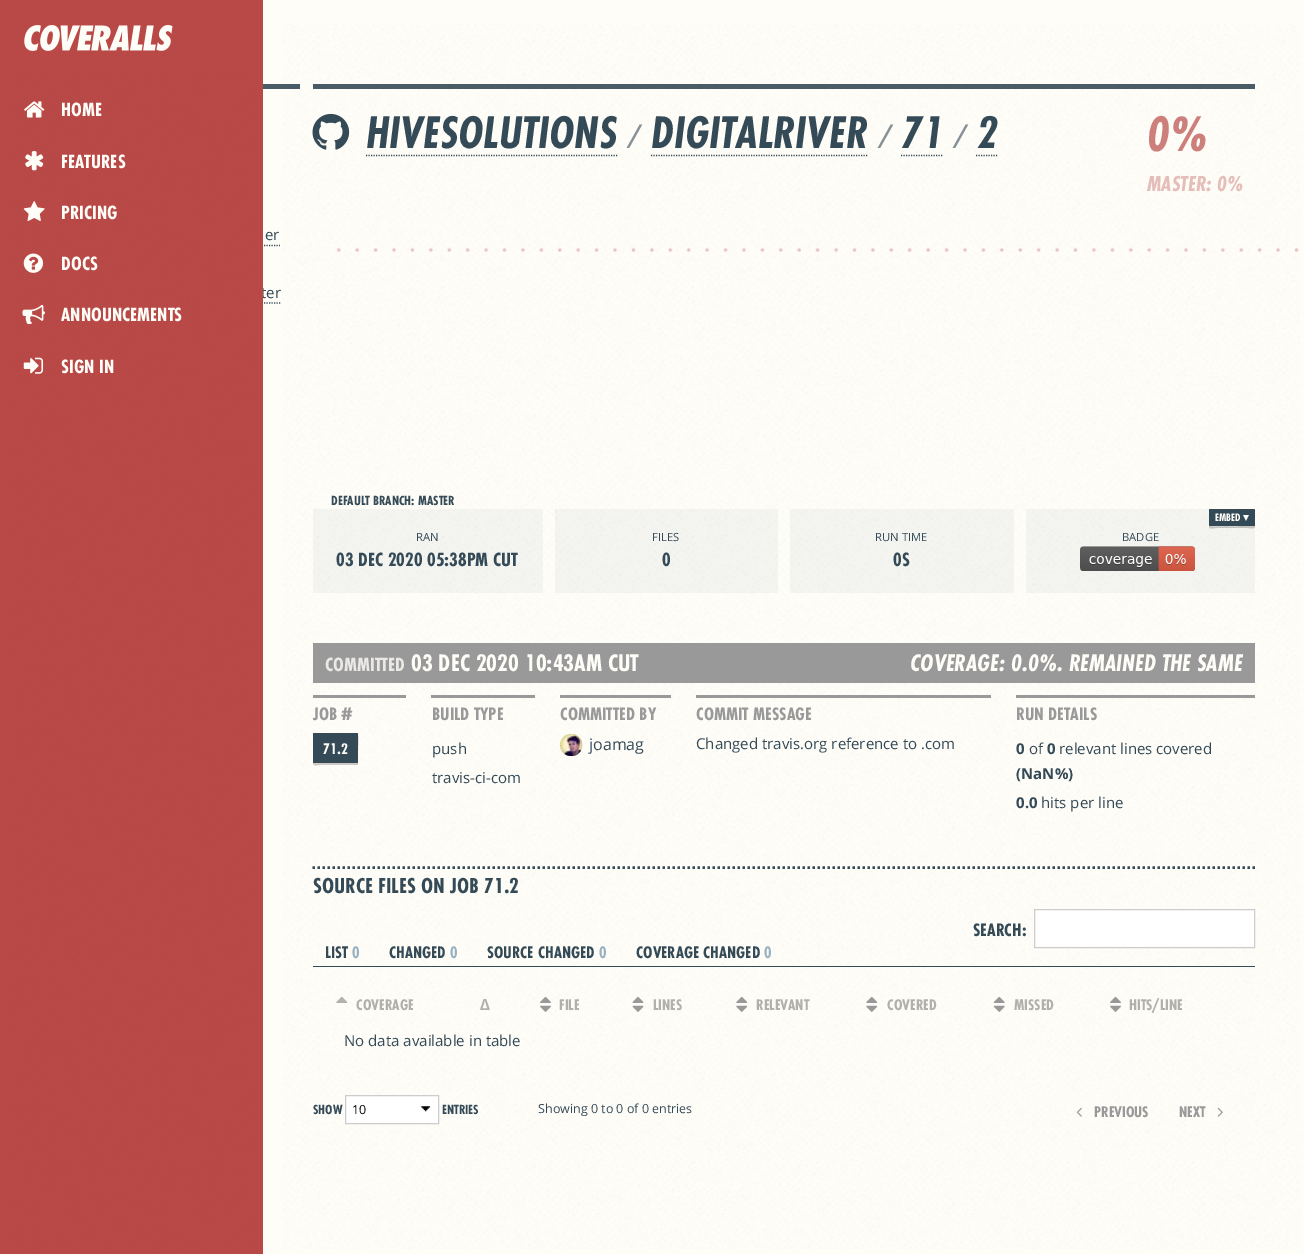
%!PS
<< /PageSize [1304 1254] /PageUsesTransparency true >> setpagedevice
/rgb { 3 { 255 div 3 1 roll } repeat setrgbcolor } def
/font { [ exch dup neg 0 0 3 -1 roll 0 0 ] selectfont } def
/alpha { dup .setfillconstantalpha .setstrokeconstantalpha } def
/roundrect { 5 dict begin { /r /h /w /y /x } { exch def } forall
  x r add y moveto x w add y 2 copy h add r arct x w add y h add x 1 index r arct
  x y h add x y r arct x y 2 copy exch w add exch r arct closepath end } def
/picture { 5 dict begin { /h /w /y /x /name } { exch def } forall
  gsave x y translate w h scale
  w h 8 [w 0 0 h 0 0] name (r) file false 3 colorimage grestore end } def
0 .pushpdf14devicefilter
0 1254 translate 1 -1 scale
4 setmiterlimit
254 253 248 rgb
0 0 1304 1254 rectfill
229 228 223 rgb
331 1019 905 1 rectfill
233 199 195 rgb
313 494 12 12 rectfill
(img/1.rgb) 283 24 1017 1225 picture
0.9 alpha
53 74 87 rgb
263 84 37 5 rectfill
1 alpha
1.2 setlinewidth
[1.25 1.25] 0 setdash
119 245.5 moveto 280 245.5 lineto stroke
119 303 moveto 281 303 lineto stroke
0.9 alpha
313 84 942 5 rectfill
1 alpha
(img/10.rgb) 312 113 38 37 picture
366 155.5 moveto 617.5 155.5 lineto stroke
651 155.5 moveto 867.5 155.5 lineto stroke
901 155.5 moveto 942.5 155.5 lineto stroke
976 155.5 moveto 997.5 155.5 lineto stroke
(img/11.rgb) 336 247 963 6 picture
0.05 alpha
1026 509 229 84 rectfill
0.2 alpha
0 0 0 rgb
1209 526 moveto 1209 530 1213 528 1217 528 curveto 1247 528 lineto 1253 528 1255 530 1255 525 curveto 1255 526 1254 526 1254 526 curveto 1249 526 1210 527 1209 526 curveto closepath fill
1 alpha
53 74 87 rgb
1209 509 46 17 1 roundrect fill
(img/12.rgb) 1080 546 115 25 picture
0.05 alpha
[
  [313 509 230 84 53 74 87]
  [555 509 223 84 53 74 87]
  [790 509 224 84 53 74 87]
] { aload pop rgb rectfill } forall
1 alpha
[
  [313 643 942 40 153 153 153]
  [313 695 93 3 153 153 153]
] { aload pop rgb rectfill } forall
0.2 alpha
0 0 0 rgb
313 762 moveto 313 767 315 765 321 765 curveto 357 765 lineto 358 765 lineto 358 750 lineto 358 748 359 736 358 735 curveto 358 757 lineto 358 764 358 762 349 762 curveto closepath fill
1 alpha
53 74 87 rgb
313 733 45 30 1 roundrect fill
153 153 153 rgb
431 695 104 3 rectfill
560 695 111 3 rectfill
(img/13.rgb) 560 733 23 24 picture
696 695 295 3 rectfill
1016 695 239 3 rectfill
53 74 87 rgb
2.5 setlinewidth
[2.5 2.5] 0 setdash
312.5 867.5 moveto 1255 867.5 lineto stroke
255 255 255 rgb
1035 910 219 36 rectfill
204 204 204 rgb
1 setlinewidth
[] 0 setdash
1034.5 909.5 220 38 rectstroke
255 255 255 rgb
346 1096 92 27 rectfill
(img/14.rgb) 421 1106 10 6 picture
204 204 204 rgb
345.5 1095.5 93 28 rectstroke
(img/15.rgb) 336 996 12 7 picture
(img/16.rgb) 540 996 11 16 picture
(img/17.rgb) 632 996 12 16 picture
(img/18.rgb) 736 996 12 16 picture
(img/19.rgb) 866 996 12 16 picture
(img/20.rgb) 993 996 12 16 picture
(img/21.rgb) 1110 996 11 16 picture
(img/22.rgb) 1076 1107 6 10 picture
(img/23.rgb) 1217 1107 6 10 picture
53 74 87 rgb
313 966 942 1 rectfill
/OpenSans-Regular 15 font
265 240 moveto (er) show
261 298 moveto (ter) show
185 73 71 rgb
0 0 263 1254 rectfill
(img/3.rgb) 24 25 149 26 picture
(img/2.rgb) 4 70 251 1179 picture
/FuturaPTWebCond-Bold 20 font
254 253 248 rgb
61 373 moveto (SIGN IN) show
(img/9.rgb) 23 357 21 17 picture
61 321 moveto (ANNOUNCEMENTS) show
(img/8.rgb) 22 304 23 21 picture
61 270 moveto (DOCS) show
(img/7.rgb) 23 253 20 20 picture
61 219 moveto (PRICING) show
(img/6.rgb) 23 201 22 20 picture
61 168 moveto (FEATURES) show
(img/5.rgb) 25 151 19 20 picture
61 116 moveto (HOME) show
(img/4.rgb) 24 101 21 17 picture
/FuturaPTWebCond-BoldItalic 47.5 font
53 74 87 rgb
366 148 moveto (HIVESOLUTIONS) show
/OpenSans-Italic 33 font
133 145 151 rgb
628 148 moveto (/) show
/FuturaPTWebCond-BoldItalic 47.5 font
53 74 87 rgb
651 148 moveto (DIGITALRIVER) show
/OpenSans-Italic 33 font
133 145 151 rgb
879 148 moveto (/) show
/FuturaPTWebCond-BoldItalic 47.5 font
53 74 87 rgb
902 148 moveto (71) show
/OpenSans-Italic 33 font
133 145 151 rgb
954 148 moveto (/) show
/FuturaPTWebCond-BoldItalic 47.5 font
53 74 87 rgb
977 148 moveto (2) show
/FuturaPTWebCond-BoldItalic 52 font
205 127 124 rgb
1147 151 moveto (0%) show
/FuturaPTWebCond-BoldItalic 22.5 font
229 189 185 rgb
1147 191 moveto (MASTER: 0%) show
/FuturaPTWebCond-Bold 13.75 font
53 74 87 rgb
331 505 moveto (DEFAULT BRANCH: MASTER) show
/FuturaPTWebCond-Bold 11.25 font
254 253 248 rgb
1215 521 moveto (EMBED) show
/DejaVuSans-Bold 11.25 font
1243 521 moveto (▾) show
/OpenSans-Regular 11.25 font
53 74 87 rgb
1122 541 moveto (BADGE) show
416 541 moveto (RAN) show
/FuturaPTWebCond-Bold 20 font
336 566 moveto (03 DEC 2020 05:38PM CUT) show
/OpenSans-Regular 11.25 font
652 541 moveto (FILES) show
/FuturaPTWebCond-Bold 20 font
662 566 moveto (0) show
/OpenSans-Regular 11.25 font
875 541 moveto (RUN TIME) show
/FuturaPTWebCond-Bold 20 font
893 566 moveto (0S) show
234 233 229 rgb
325 671 moveto (COMMITTED) show
/FuturaPTWebCond-Bold 25 font
254 253 248 rgb
411 671 moveto (03 DEC 2020 10:43AM CUT) show
/FuturaPTWebCond-BoldItalic 25 font
910 671 moveto (COVERAGE: 0.0%. REMAINED THE SAME) show
/FuturaPTWebCond-Bold 18.75 font
153 153 153 rgb
313 720 moveto (JOB #) show
/FuturaPTWebCond-Bold 16 font
254 253 248 rgb
323 754 moveto (71.2) show
/FuturaPTWebCond-Bold 18.75 font
153 153 153 rgb
432 720 moveto (BUILD TYPE) show
/OpenSans-Regular 15 font
53 74 87 rgb
432 754 moveto (push) show
432 783 moveto (travis-ci-com) show
/FuturaPTWebCond-Bold 18.75 font
153 153 153 rgb
560 720 moveto (COMMITTED BY) show
/OpenSans-Regular 16 font
53 74 87 rgb
589 750 moveto (joamag) show
/FuturaPTWebCond-Bold 18.75 font
153 153 153 rgb
696 720 moveto (COMMIT MESSAGE) show
/OpenSans-Regular 15 font
53 74 87 rgb
696 749 moveto (Changed travis.org reference to .com) show
/FuturaPTWebCond-Bold 18.75 font
153 153 153 rgb
1016 720 moveto (RUN DETAILS) show
/OpenSans-Bold 15 font
53 74 87 rgb
1016 754 moveto (0) show
/OpenSans-Regular 15 font
1029 754 moveto (of) show
/OpenSans-Bold 15 font
1047 754 moveto (0) show
/OpenSans-Regular 15 font
1059 754 moveto (relevant lines covered) show
/OpenSans-Bold 15 font
1016 779 moveto (\(NaN%\)) show
1016 808 moveto (0.0) show
/OpenSans-Regular 15 font
1041 808 moveto (hits per line) show
/FuturaPTWebCond-Bold 22.5 font
313 893 moveto (SOURCE FILES ON JOB 71.2) show
/FuturaPTWebCond-Bold 18.75 font
973 936 moveto (SEARCH:) show
/FuturaPTWebCond-Bold 13.75 font
313 1114 moveto (SHOW) show
/OpenSans-Regular 12.5 font
0 0 0 rgb
352 1114 moveto (10) show
/FuturaPTWebCond-Bold 13.75 font
53 74 87 rgb
442 1114 moveto (ENTRIES) show
/FuturaPTWebCond-Bold 16 font
177 176 173 rgb
356 1010 moveto (COVERAGE) show
/LiberationSans-Bold 16 font
480 1010 moveto (∆) show
/FuturaPTWebCond-Bold 16 font
[
  [(FILE) 559 1010]
  [(LINES) 653 1010]
  [(RELEVANT) 756 1010]
  [(COVERED) 887 1010]
  [(MISSED) 1014 1010]
  [(HITS/LINE) 1129 1010]
] { aload pop moveto show } forall
/OpenSans-Regular 15 font
53 74 87 rgb
344 1046 moveto (No data available in table) show
/OpenSans-Regular 12.5 font
538 1113 moveto (Showing 0 to 0 of 0 entries) show
/FuturaPTWebCond-Bold 16 font
153 153 153 rgb
1094 1117 moveto (PREVIOUS) show
1179 1117 moveto (NEXT) show
/FuturaPTWebCond-Bold 17.5 font
53 74 87 rgb
325 958 moveto (LIST) show
152 177 192 rgb
352 958 moveto (0) show
53 74 87 rgb
389 958 moveto (CHANGED) show
152 177 192 rgb
450 958 moveto (0) show
53 74 87 rgb
487 958 moveto (SOURCE CHANGED) show
152 177 192 rgb
599 958 moveto (0) show
53 74 87 rgb
636 958 moveto (COVERAGE CHANGED) show
152 177 192 rgb
764 958 moveto (0) show
.poppdf14devicefilter showpage
